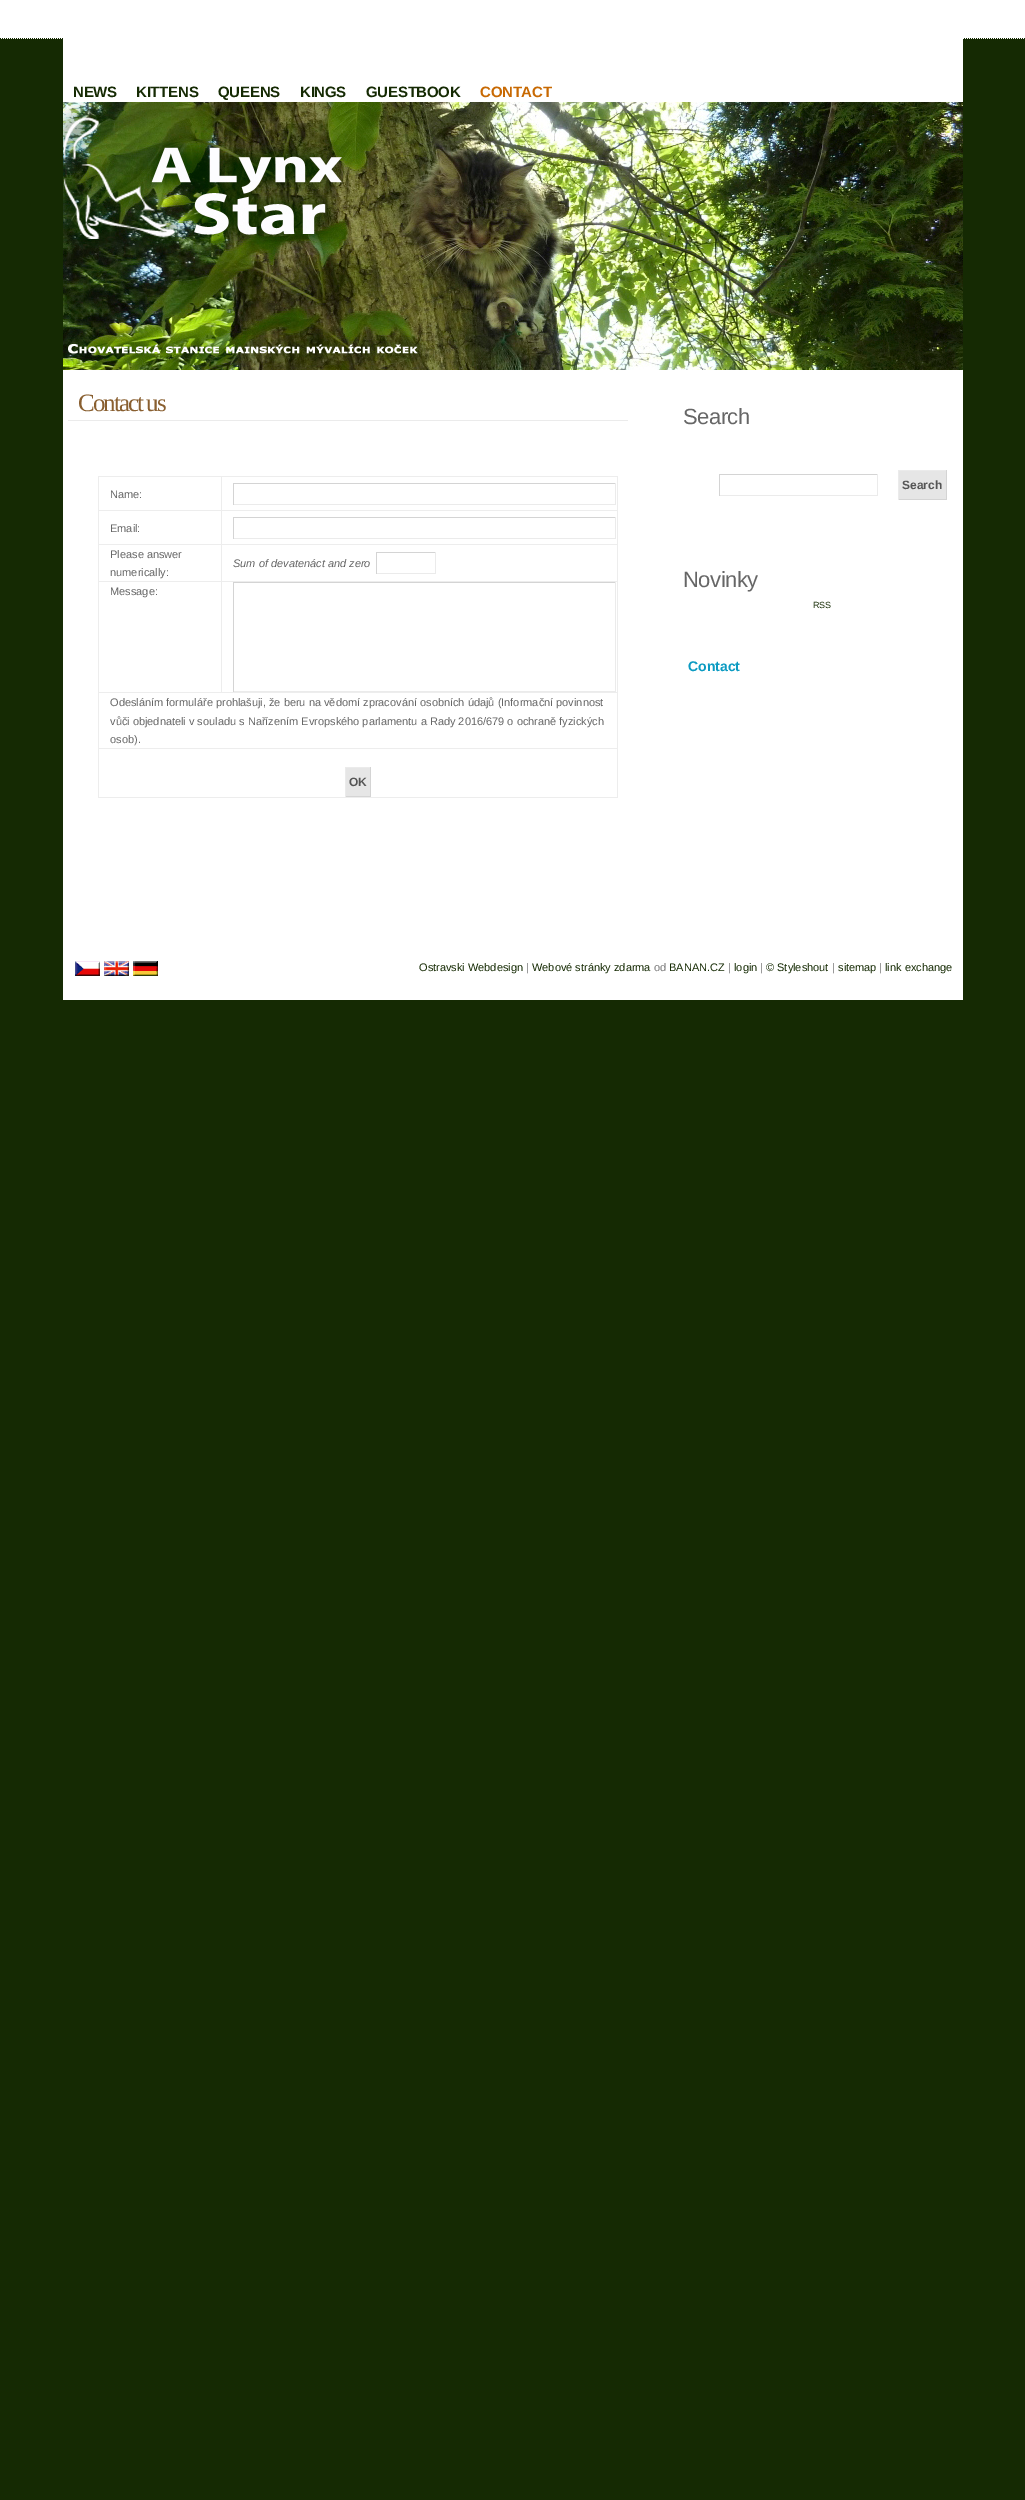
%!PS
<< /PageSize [1025 2500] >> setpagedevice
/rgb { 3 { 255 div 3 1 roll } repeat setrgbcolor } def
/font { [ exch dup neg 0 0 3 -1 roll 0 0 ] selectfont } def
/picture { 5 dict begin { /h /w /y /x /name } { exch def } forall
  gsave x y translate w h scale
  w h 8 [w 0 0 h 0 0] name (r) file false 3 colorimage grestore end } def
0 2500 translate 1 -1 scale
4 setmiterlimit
21 42 3 rgb
0 0 1025 2500 rectfill
255 255 255 rgb
0 0 1025 39 rectfill
21 42 3 rgb
[1 1] 0 setdash
0 38.5 moveto 1025 38.5 lineto stroke
255 255 255 rgb
63 370 900 630 rectfill
(img/1.rgb) 63 38 900 332 picture
[
  [68 420 560 1 235 235 235]
  [221 476 397 1 237 237 237]
  [221 510 397 1 237 237 237]
  [221 544 397 1 237 237 237]
  [221 581 397 1 237 237 237]
  [98 692 520 1 237 237 237]
  [221 581 1 112 237 237 237]
  [98 581 124 1 237 237 237]
  [221 544 1 38 237 237 237]
  [98 544 124 1 237 237 237]
  [221 510 1 35 237 237 237]
  [98 510 124 1 237 237 237]
  [221 476 1 35 237 237 237]
  [98 476 124 1 237 237 237]
  [98 748 520 1 237 237 237]
  [617 748 1 50 237 237 237]
  [98 797 520 1 237 237 237]
  [98 748 1 50 237 237 237]
  [98 692 1 57 237 237 237]
  [98 581 1 112 237 237 237]
  [98 544 1 38 237 237 237]
  [98 510 1 35 237 237 237]
  [98 476 1 35 237 237 237]
  [617 692 1 57 237 237 237]
  [617 581 1 112 237 237 237]
  [617 544 1 38 237 237 237]
  [617 510 1 35 237 237 237]
  [617 476 1 35 237 237 237]
  [233 483 383 1 212 212 212]
  [615 483 1 22 235 235 235]
  [233 504 383 1 235 235 235]
  [233 483 1 22 212 212 212]
  [233 517 383 1 212 212 212]
  [615 517 1 22 235 235 235]
  [233 538 383 1 235 235 235]
  [233 517 1 22 212 212 212]
  [376 552 60 1 212 212 212]
  [435 552 1 22 235 235 235]
  [376 573 60 1 235 235 235]
  [376 552 1 22 212 212 212]
  [233 582 383 1 212 212 212]
  [615 582 1 110 235 235 235]
  [233 691 383 1 235 235 235]
  [233 582 1 110 212 212 212]
  [346 768 24 28 230 230 230]
  [345 767 26 1 235 235 235]
  [370 767 1 30 212 212 212]
  [345 796 26 1 212 212 212]
  [345 767 1 30 235 235 235]
  [719 474 159 1 212 212 212]
  [877 474 1 22 235 235 235]
  [719 495 159 1 235 235 235]
  [719 474 1 22 212 212 212]
  [899 471 47 28 230 230 230]
  [898 470 49 1 235 235 235]
  [946 470 1 30 212 212 212]
  [898 499 49 1 212 212 212]
  [898 470 1 30 235 235 235]
] { aload pop rgb rectfill } forall
(img/2.rgb) 75 961 25 15 picture
(img/3.rgb) 104 961 25 15 picture
(img/4.rgb) 133 961 25 15 picture
/LiberationSans-Bold 15 font
21 42 3 rgb
73 97 moveto -0.25 0 (NEWS) ashow
136 97 moveto -0.25 0 (KITTENS) ashow
218 97 moveto -0.25 0 (QUEENS) ashow
300 97 moveto -0.25 0 (KINGS) ashow
366 97 moveto -0.25 0 (GUESTBOOK) ashow
200 105 2 rgb
480 97 moveto -0.25 0 (CONTACT) ashow
/LiberationSerif-Regular 25 font
137 95 48 rgb
78 411 moveto -2 0 (Contact us) ashow
/LiberationSans-Regular 11 font
102 102 102 rgb
[
  [(Name:) 110 498]
  [(Email:) 110 532]
  [(Please answer) 110 558]
  [(numerically:) 110 576]
] { aload pop moveto show } forall
/LiberationSans-Italic 11 font
233 567 moveto (Sum of devatenáct and zero) show
/LiberationSans-Regular 11 font
[
  [(Message:) 110 595]
  [(Odesláním formuláře prohlašuji, že beru na vědomí zpracování osobních údajů \(Informační povinnost) 110 706]
  [(vůči objednateli v souladu s Nařízením Evropského parlamentu a Rady 2016/679 o ochraně fyzických) 110 725]
  [(osob\).) 110 743]
] { aload pop moveto show } forall
/LiberationSans-Bold 12 font
85 85 85 rgb
349 786 moveto (OK) show
/LiberationSans-Regular 22 font
102 102 102 rgb
683 424 moveto -0.5 0 (Search) ashow
/LiberationSans-Bold 12 font
85 85 85 rgb
902 489 moveto (Search) show
/LiberationSans-Regular 22 font
102 102 102 rgb
683 587 moveto -0.5 0 (Novinky) ashow
/LiberationSans-Regular 9 font
21 42 3 rgb
813 608 moveto (RSS) show
/LiberationSans-Bold 14 font
12 155 194 rgb
688 671 moveto (Contact) show
/LiberationSans-Regular 11 font
21 42 3 rgb
419 971 moveto (Ostravski Webdesign) show
119 119 119 rgb
526 971 moveto (|) show
21 42 3 rgb
532 971 moveto (Webové stránky zdarma) show
119 119 119 rgb
654 971 moveto (od) show
21 42 3 rgb
669 971 moveto (BANAN.CZ) show
119 119 119 rgb
728 971 moveto (|) show
21 42 3 rgb
734 971 moveto (login) show
119 119 119 rgb
760 971 moveto (|) show
21 42 3 rgb
766 971 moveto (© Styleshout) show
119 119 119 rgb
832 971 moveto (|) show
21 42 3 rgb
838 971 moveto (sitemap) show
119 119 119 rgb
879 971 moveto (|) show
21 42 3 rgb
885 971 moveto (link exchange) show
showpage
